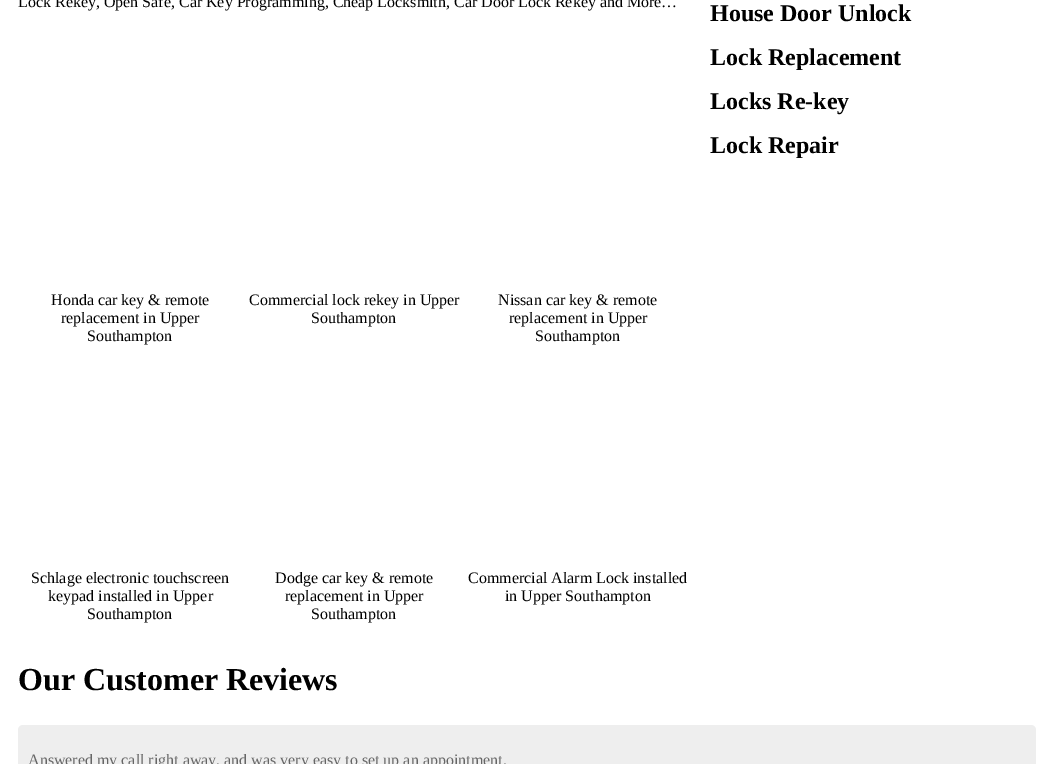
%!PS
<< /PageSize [1054 764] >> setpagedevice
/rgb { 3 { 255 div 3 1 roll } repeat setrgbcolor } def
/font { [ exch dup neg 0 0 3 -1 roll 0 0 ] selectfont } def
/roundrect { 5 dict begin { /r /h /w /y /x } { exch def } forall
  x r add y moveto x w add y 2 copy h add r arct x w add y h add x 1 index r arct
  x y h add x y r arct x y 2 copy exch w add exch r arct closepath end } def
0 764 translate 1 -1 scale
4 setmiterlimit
255 255 255 rgb
0 0 1054 764 rectfill
238 238 238 rgb
18 725 1018 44 5 roundrect fill
/LiberationSerif-Regular 16 font
0 0 0 rgb
[
  [(Lock Rekey, Open Safe, Car Key Programming, Cheap Locksmith, Car Door Lock Rekey and More…) 18 7]
  [(Honda car key & remote) 51 305]
  [(replacement in Upper) 61 323]
  [(Southampton) 87 341]
  [(Commercial lock rekey in Upper) 249 305]
  [(Southampton) 311 323]
  [(Nissan car key & remote) 498 305]
  [(replacement in Upper) 509 323]
  [(Southampton) 535 341]
  [(Schlage electronic touchscreen) 31 583]
  [(keypad installed in Upper) 48 601]
  [(Southampton) 87 619]
  [(Dodge car key & remote) 275 583]
  [(replacement in Upper) 285 601]
  [(Southampton) 311 619]
  [(Commercial Alarm Lock installed) 468 583]
  [(in Upper Southampton) 505 601]
] { aload pop moveto show } forall
/LiberationSerif-Bold 24 font
[
  [(House Door Unlock) 710 21]
  [(Lock Replacement) 710 65]
  [(Locks Re-key) 710 109]
  [(Lock Repair) 710 153]
] { aload pop moveto show } forall
/LiberationSerif-Bold 32 font
18 690 moveto (Our Customer Reviews) show
/LiberationSerif-Regular 16 font
102 102 102 rgb
28 765 moveto (Answered my call right away, and was very easy to set up an appointment.) show
showpage
